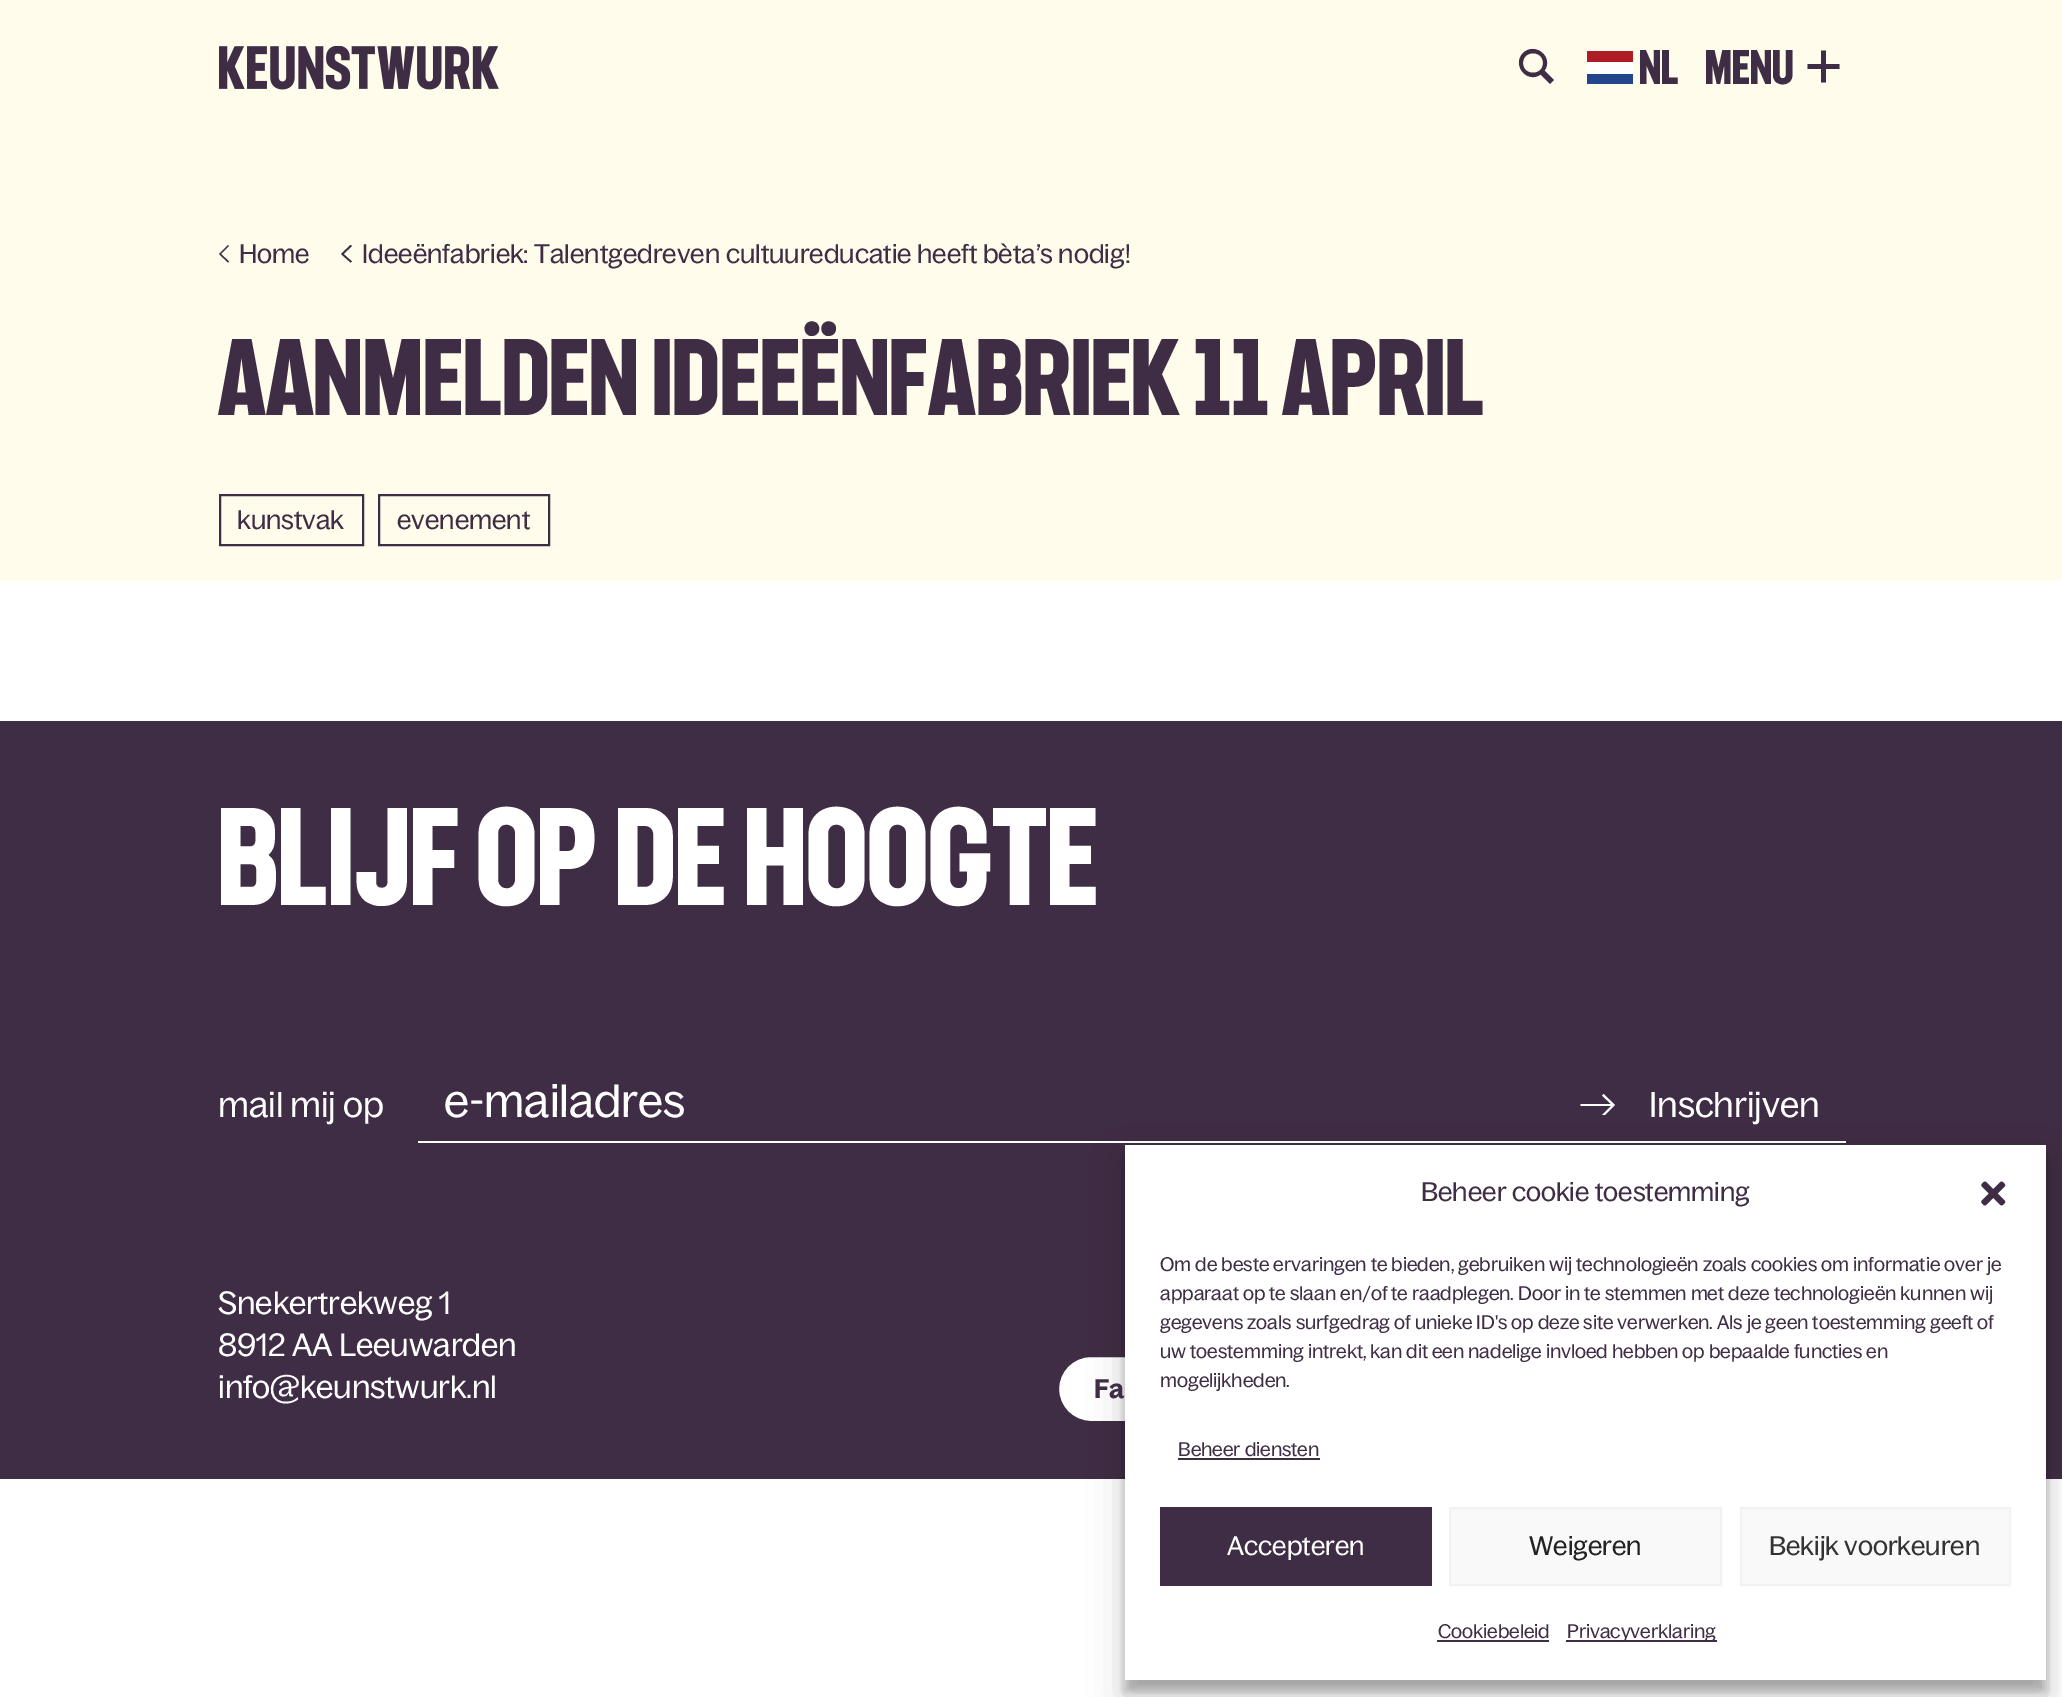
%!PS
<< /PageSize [2062 1697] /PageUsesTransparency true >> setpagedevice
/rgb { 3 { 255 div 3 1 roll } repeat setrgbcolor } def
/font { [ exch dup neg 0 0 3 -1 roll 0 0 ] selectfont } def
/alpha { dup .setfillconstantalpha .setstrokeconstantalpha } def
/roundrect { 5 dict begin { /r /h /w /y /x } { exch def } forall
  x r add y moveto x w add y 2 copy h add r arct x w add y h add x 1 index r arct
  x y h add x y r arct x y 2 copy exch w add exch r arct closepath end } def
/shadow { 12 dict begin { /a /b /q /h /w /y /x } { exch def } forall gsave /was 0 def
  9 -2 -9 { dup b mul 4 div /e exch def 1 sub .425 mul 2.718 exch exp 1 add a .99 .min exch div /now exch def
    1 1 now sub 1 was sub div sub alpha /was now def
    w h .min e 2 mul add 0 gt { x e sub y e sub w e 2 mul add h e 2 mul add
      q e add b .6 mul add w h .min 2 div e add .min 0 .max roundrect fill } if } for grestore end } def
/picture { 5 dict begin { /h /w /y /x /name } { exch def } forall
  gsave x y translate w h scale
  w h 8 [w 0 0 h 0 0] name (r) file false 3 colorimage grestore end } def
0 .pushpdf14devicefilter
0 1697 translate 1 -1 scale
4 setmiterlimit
255 255 255 rgb
0 0 2062 1697 rectfill
255 252 235 rgb
0 0 2062 581 rectfill
(img/1.rgb) 219 46 280 44 picture
63 44 69 rgb
1554 80 moveto 1544.5 70.5 lineto 1554 57 1535 41.5 1523 53 curveto 1511.5 65 1527 84 1540.5 74.5 curveto 1550 84 lineto closepath 1523 63 moveto 1523 50 1543 50 1543 63 curveto 1543 76 1523 76 1523 63 curveto closepath fill
[
  [1587 62 46 12 255 255 255]
  [1587 74 46 10 33 70 139]
  [1587 51 46 11 174 28 40]
] { aload pop rgb rectfill } forall
63 44 69 rgb
1826 82.5 moveto 1826 69 lineto 1839.5 69 lineto 1839.5 64 lineto 1826 64 lineto 1826 50.5 lineto 1821 50.5 lineto 1821 64 lineto 1807.5 64 lineto 1807.5 69 lineto 1821 69 lineto 1821 82.5 lineto closepath fill
228 262.5 moveto 229 261.5 lineto 221 254 lineto 229 246 lineto 228 245 lineto 219 254 lineto closepath fill
350.5 262.5 moveto 352 261.5 lineto 343.5 254 lineto 352 246 lineto 350.5 245 lineto 341 254 lineto closepath fill
2 setlinewidth
220 495 143 50 rectstroke
379 495 170 50 rectstroke
0 721 2062 758 rectfill
255 255 255 rgb
418 1141 1428 2 rectfill
gsave
1580 1094 35 21 rectclip
1603.5 1094 moveto 1602 1095.5 lineto 1611 1104 lineto 1580.5 1104 lineto 1580.5 1106 lineto 1611 1106 lineto 1602 1115 lineto 1603.5 1116.5 lineto 1615 1105 lineto closepath fill
grestore
1058 1356 192 66 33 roundrect gsave fill grestore
63 44 69 rgb
stroke
0 0 0 rgb
1125 1155 921 536 0 5 0.23 shadow
1125 1162 921 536 0 17.5 0.19 shadow
255 255 255 rgb
1125 1145 921 535 rectfill
(img/2.rgb) 1981 1181 25 25 picture
63 44 69 rgb
1178 1458 142 2 rectfill
1160 1507 272 79 rectfill
249 249 249 rgb
1450 1508 moveto 1721 1508 lineto 1721 1585 lineto 1450 1585 lineto closepath gsave fill grestore
242 242 242 rgb
stroke
249 249 249 rgb
1741 1508 moveto 2010 1508 lineto 2010 1585 lineto 1741 1585 lineto closepath gsave fill grestore
242 242 242 rgb
stroke
63 44 69 rgb
1437 1640 112 2 rectfill
1566 1640 151 2 rectfill
/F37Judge-Bold 45.5 font
1639 84 moveto (NL) show
1705 84 moveto (MENU) show
/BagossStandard-Regular 26.25 font
239 263 moveto (Home) show
362 263 moveto (Ideeënfabriek: Talentgedreven cultuureducatie heeft bèta’s nodig!) show
/F37Judge-Bold 101.5 font
218 415 moveto (AANMELDEN IDEEËNFABRIEK 11 APRIL) show
/BagossStandard-Regular 26.25 font
237 529 moveto (kunstvak) show
397 529 moveto (evenement) show
/F37Judge-Bold 129.5 font
255 255 255 rgb
218 905 moveto (BLIJF OP DE HOOGTE) show
/BagossStandard-Regular 35 font
218 1117 moveto (mail mij op) show
/BagossStandard-Regular 45.5 font
444 1117 moveto (e-mailadres) show
/BagossStandard-Regular 35 font
1649 1117 moveto (Inschrijven) show
/BagossStandard-Regular 31.5 font
[
  [(Snekertrekweg 1) 218 1314]
  [(8912 AA Leeuwarden) 218 1356]
  [(info@keunstwurk.nl) 218 1398]
] { aload pop moveto show } forall
/BagossStandard-SemiBold 26.25 font
63 44 69 rgb
1094 1398 moveto (Fa) show
/BagossStandard-Regular 26.25 font
1421 1201 moveto (Beheer cookie toestemming) show
/BagossStandard-Regular 19.25 font
[
  [(Om de beste ervaringen te bieden, gebruiken wij technologieën zoals cookies om informatie over je) 1160 1271]
  [(apparaat op te slaan en/of te raadplegen. Door in te stemmen met deze technologieën kunnen wij) 1160 1300]
  [(gegevens zoals surfgedrag of unieke ID's op deze site verwerken. Als je geen toestemming geeft of) 1160 1329]
  [(uw toestemming intrekt, kan dit een nadelige invloed hebben op bepaalde functies en) 1160 1358]
  [(mogelijkheden.) 1160 1387]
  [(Beheer diensten) 1178 1456]
] { aload pop moveto show } forall
/BagossStandard-Regular 26.25 font
255 255 255 rgb
1227 1555 moveto (Accepteren) show
34 34 34 rgb
1529 1555 moveto (Weigeren) show
51 51 51 rgb
1769 1555 moveto (Bekijk voorkeuren) show
/BagossStandard-Regular 19.25 font
63 44 69 rgb
1438 1638 moveto (Cookiebeleid) show
1567 1638 moveto (Privacyverklaring) show
.poppdf14devicefilter showpage
